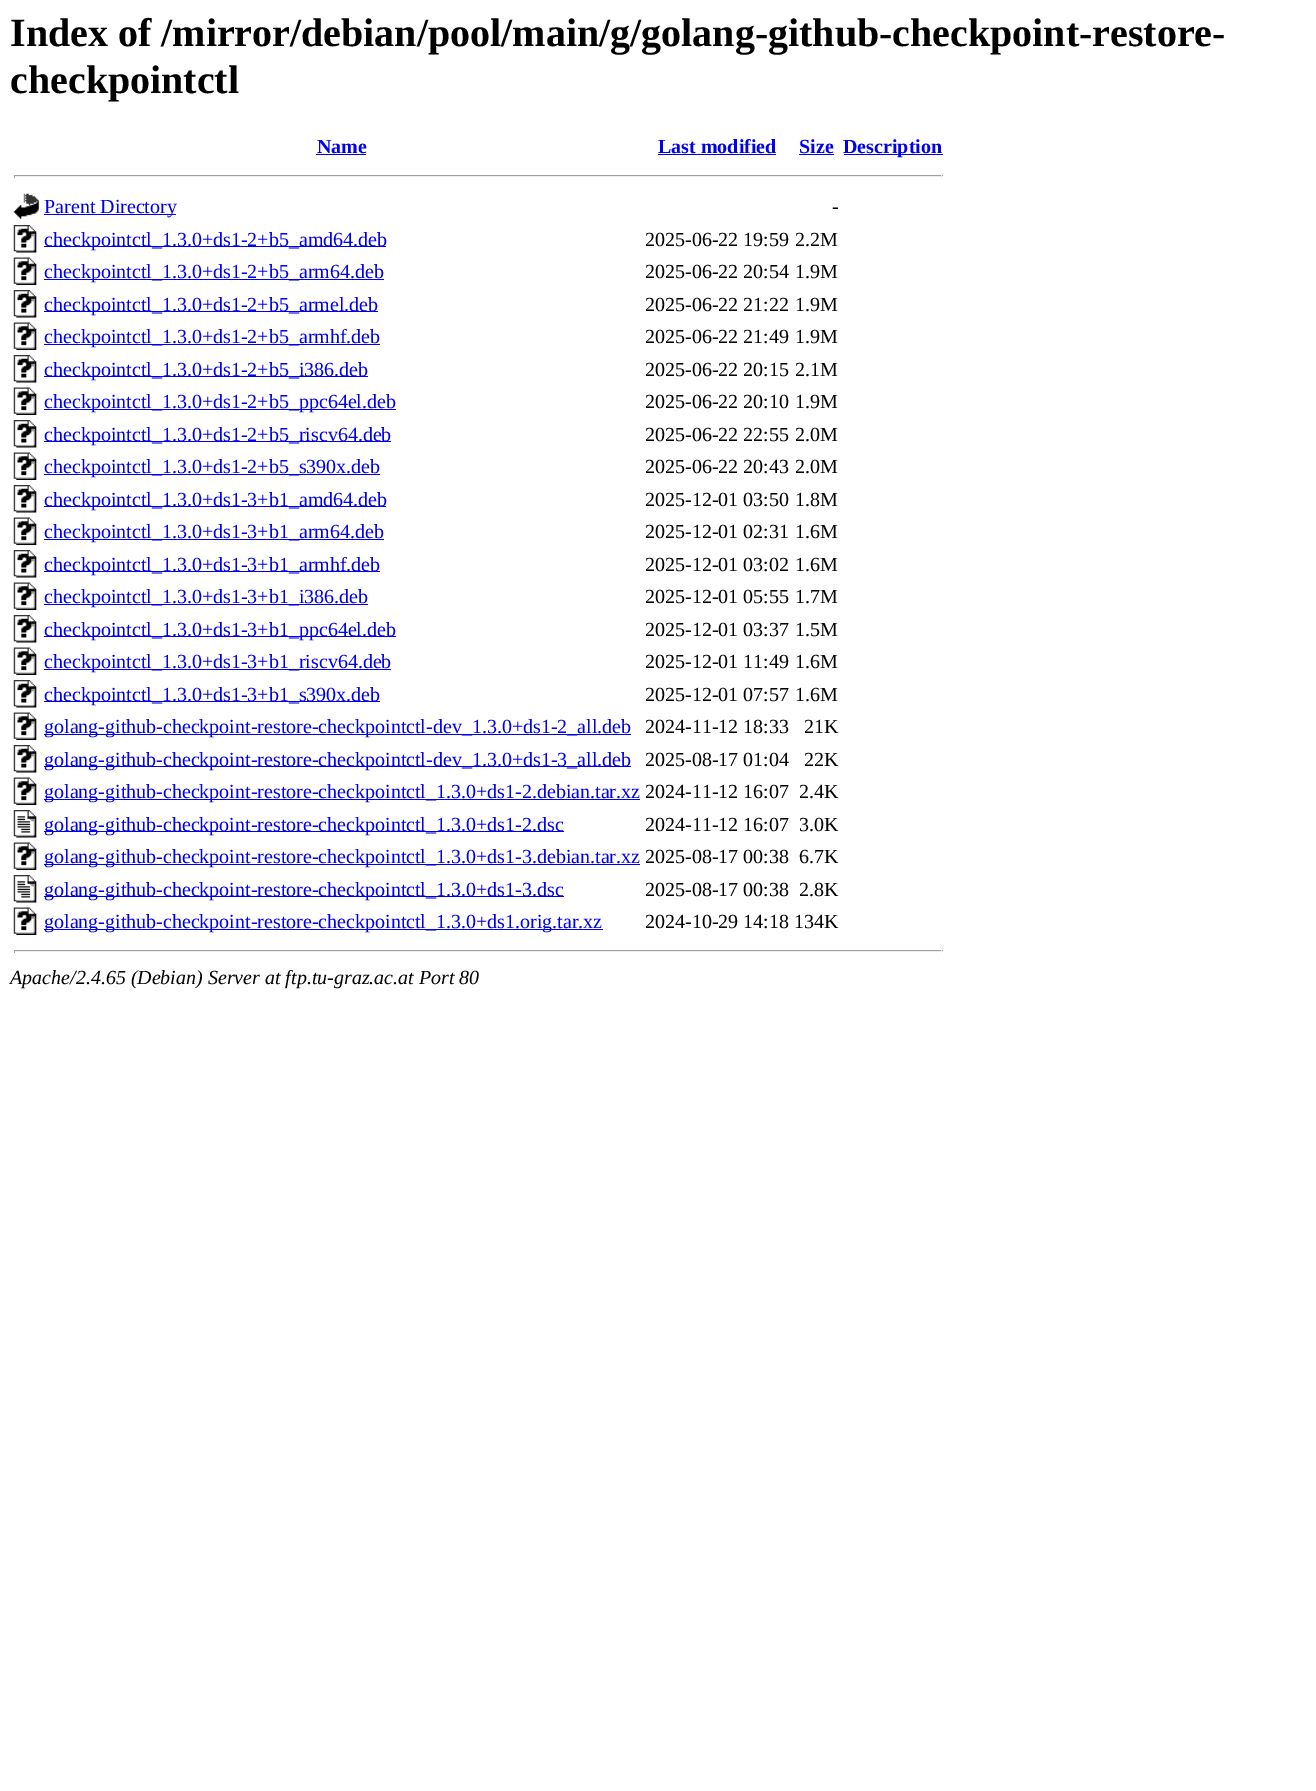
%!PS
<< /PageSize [1316 1791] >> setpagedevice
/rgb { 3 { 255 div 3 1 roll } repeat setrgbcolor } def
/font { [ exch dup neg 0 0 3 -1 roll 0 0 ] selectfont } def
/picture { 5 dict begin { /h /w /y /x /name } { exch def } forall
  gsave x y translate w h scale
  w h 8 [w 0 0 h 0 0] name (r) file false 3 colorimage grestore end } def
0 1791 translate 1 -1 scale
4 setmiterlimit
255 255 255 rgb
0 0 1316 1791 rectfill
[
  [316 154 50 1 0 0 238]
  [658 154 118 1 0 0 238]
  [799 154 35 1 0 0 238]
  [844 154 99 1 0 0 238]
  [14 175 929 1 159 159 159]
  [941 175 1 3 238 238 238]
  [14 176 929 1 238 238 238]
  [14 175 1 3 159 159 159]
] { aload pop rgb rectfill } forall
(img/1.rgb) 13 193 26 26 picture
0 0 238 rgb
44 214 132 1 rectfill
(img/2.rgb) 13 225 24 28 picture
44 246 342 1 rectfill
(img/3.rgb) 13 257 24 28 picture
44 279 340 1 rectfill
(img/4.rgb) 13 290 24 28 picture
44 311 334 1 rectfill
(img/3.rgb) 13 322 24 28 picture
44 344 336 1 rectfill
(img/2.rgb) 13 355 24 28 picture
44 376 324 1 rectfill
(img/3.rgb) 13 387 24 28 picture
44 409 352 1 rectfill
(img/2.rgb) 13 420 24 28 picture
44 441 347 1 rectfill
(img/3.rgb) 13 452 24 28 picture
44 474 336 1 rectfill
(img/2.rgb) 13 485 24 28 picture
44 506 342 1 rectfill
(img/3.rgb) 13 517 24 28 picture
44 539 340 1 rectfill
(img/2.rgb) 13 550 24 28 picture
44 571 336 1 rectfill
(img/5.rgb) 13 582 24 28 picture
44 604 324 1 rectfill
(img/2.rgb) 13 615 24 28 picture
44 636 352 1 rectfill
(img/3.rgb) 13 647 24 28 picture
44 669 347 1 rectfill
(img/2.rgb) 13 680 24 28 picture
44 701 336 1 rectfill
(img/3.rgb) 13 712 24 28 picture
44 734 587 1 rectfill
(img/2.rgb) 13 745 24 28 picture
44 766 587 1 rectfill
(img/6.rgb) 13 777 24 28 picture
44 799 596 1 rectfill
(img/7.rgb) 13 810 24 28 picture
44 831 520 1 rectfill
(img/3.rgb) 13 842 24 28 picture
44 864 596 1 rectfill
(img/7.rgb) 13 875 24 28 picture
44 896 520 1 rectfill
(img/3.rgb) 13 907 24 28 picture
[
  [44 929 559 1 0 0 238]
  [14 950 929 1 159 159 159]
  [941 950 1 3 238 238 238]
  [14 951 929 1 238 238 238]
  [14 950 1 3 159 159 159]
] { aload pop rgb rectfill } forall
/LiberationSerif-Bold 40 font
0 0 0 rgb
10 46 moveto (Index of /mirror/debian/pool/main/g/golang-github-checkpoint-restore-) show
10 93 moveto (checkpointctl) show
/LiberationSerif-Bold 20 font
0 0 238 rgb
[
  [(Name) 317 153]
  [(Last modified) 658 153]
  [(Size) 799 153]
  [(Description) 843 153]
] { aload pop moveto show } forall
/LiberationSerif-Regular 20 font
44 213 moveto (Parent Directory) show
0 0 0 rgb
832 213 moveto (-) show
0 0 238 rgb
44 246 moveto (checkpointctl_1.3.0+ds1-2+b5_amd64.deb) show
0 0 0 rgb
645 246 moveto (2025-06-22 19:59) show
795 246 moveto (2.2M) show
0 0 238 rgb
44 278 moveto (checkpointctl_1.3.0+ds1-2+b5_arm64.deb) show
0 0 0 rgb
645 278 moveto (2025-06-22 20:54) show
795 278 moveto (1.9M) show
0 0 238 rgb
44 311 moveto (checkpointctl_1.3.0+ds1-2+b5_armel.deb) show
0 0 0 rgb
645 311 moveto (2025-06-22 21:22) show
795 311 moveto (1.9M) show
0 0 238 rgb
44 343 moveto (checkpointctl_1.3.0+ds1-2+b5_armhf.deb) show
0 0 0 rgb
645 343 moveto (2025-06-22 21:49) show
795 343 moveto (1.9M) show
0 0 238 rgb
44 376 moveto (checkpointctl_1.3.0+ds1-2+b5_i386.deb) show
0 0 0 rgb
645 376 moveto (2025-06-22 20:15) show
795 376 moveto (2.1M) show
0 0 238 rgb
44 408 moveto (checkpointctl_1.3.0+ds1-2+b5_ppc64el.deb) show
0 0 0 rgb
645 408 moveto (2025-06-22 20:10) show
795 408 moveto (1.9M) show
0 0 238 rgb
44 441 moveto (checkpointctl_1.3.0+ds1-2+b5_riscv64.deb) show
0 0 0 rgb
645 441 moveto (2025-06-22 22:55) show
795 441 moveto (2.0M) show
0 0 238 rgb
44 473 moveto (checkpointctl_1.3.0+ds1-2+b5_s390x.deb) show
0 0 0 rgb
645 473 moveto (2025-06-22 20:43) show
795 473 moveto (2.0M) show
0 0 238 rgb
44 506 moveto (checkpointctl_1.3.0+ds1-3+b1_amd64.deb) show
0 0 0 rgb
645 506 moveto (2025-12-01 03:50) show
795 506 moveto (1.8M) show
0 0 238 rgb
44 538 moveto (checkpointctl_1.3.0+ds1-3+b1_arm64.deb) show
0 0 0 rgb
645 538 moveto (2025-12-01 02:31) show
795 538 moveto (1.6M) show
0 0 238 rgb
44 571 moveto (checkpointctl_1.3.0+ds1-3+b1_armhf.deb) show
0 0 0 rgb
645 571 moveto (2025-12-01 03:02) show
795 571 moveto (1.6M) show
0 0 238 rgb
44 603 moveto (checkpointctl_1.3.0+ds1-3+b1_i386.deb) show
0 0 0 rgb
645 603 moveto (2025-12-01 05:55) show
795 603 moveto (1.7M) show
0 0 238 rgb
44 636 moveto (checkpointctl_1.3.0+ds1-3+b1_ppc64el.deb) show
0 0 0 rgb
645 636 moveto (2025-12-01 03:37) show
795 636 moveto (1.5M) show
0 0 238 rgb
44 668 moveto (checkpointctl_1.3.0+ds1-3+b1_riscv64.deb) show
0 0 0 rgb
645 668 moveto (2025-12-01 11:49) show
795 668 moveto (1.6M) show
0 0 238 rgb
44 701 moveto (checkpointctl_1.3.0+ds1-3+b1_s390x.deb) show
0 0 0 rgb
645 701 moveto (2025-12-01 07:57) show
795 701 moveto (1.6M) show
0 0 238 rgb
44 733 moveto (golang-github-checkpoint-restore-checkpointctl-dev_1.3.0+ds1-2_all.deb) show
0 0 0 rgb
645 733 moveto (2024-11-12 18:33) show
804 733 moveto (21K) show
0 0 238 rgb
44 766 moveto (golang-github-checkpoint-restore-checkpointctl-dev_1.3.0+ds1-3_all.deb) show
0 0 0 rgb
645 766 moveto (2025-08-17 01:04) show
804 766 moveto (22K) show
0 0 238 rgb
44 798 moveto (golang-github-checkpoint-restore-checkpointctl_1.3.0+ds1-2.debian.tar.xz) show
0 0 0 rgb
645 798 moveto (2024-11-12 16:07) show
799 798 moveto (2.4K) show
0 0 238 rgb
44 831 moveto (golang-github-checkpoint-restore-checkpointctl_1.3.0+ds1-2.dsc) show
0 0 0 rgb
645 831 moveto (2024-11-12 16:07) show
799 831 moveto (3.0K) show
0 0 238 rgb
44 863 moveto (golang-github-checkpoint-restore-checkpointctl_1.3.0+ds1-3.debian.tar.xz) show
0 0 0 rgb
645 863 moveto (2025-08-17 00:38) show
799 863 moveto (6.7K) show
0 0 238 rgb
44 896 moveto (golang-github-checkpoint-restore-checkpointctl_1.3.0+ds1-3.dsc) show
0 0 0 rgb
645 896 moveto (2025-08-17 00:38) show
799 896 moveto (2.8K) show
0 0 238 rgb
44 928 moveto (golang-github-checkpoint-restore-checkpointctl_1.3.0+ds1.orig.tar.xz) show
0 0 0 rgb
645 928 moveto (2024-10-29 14:18 134K) show
/LiberationSerif-Italic 20 font
10 984 moveto (Apache/2.4.65 \(Debian\) Server at ftp.tu-graz.ac.at Port 80) show
showpage
